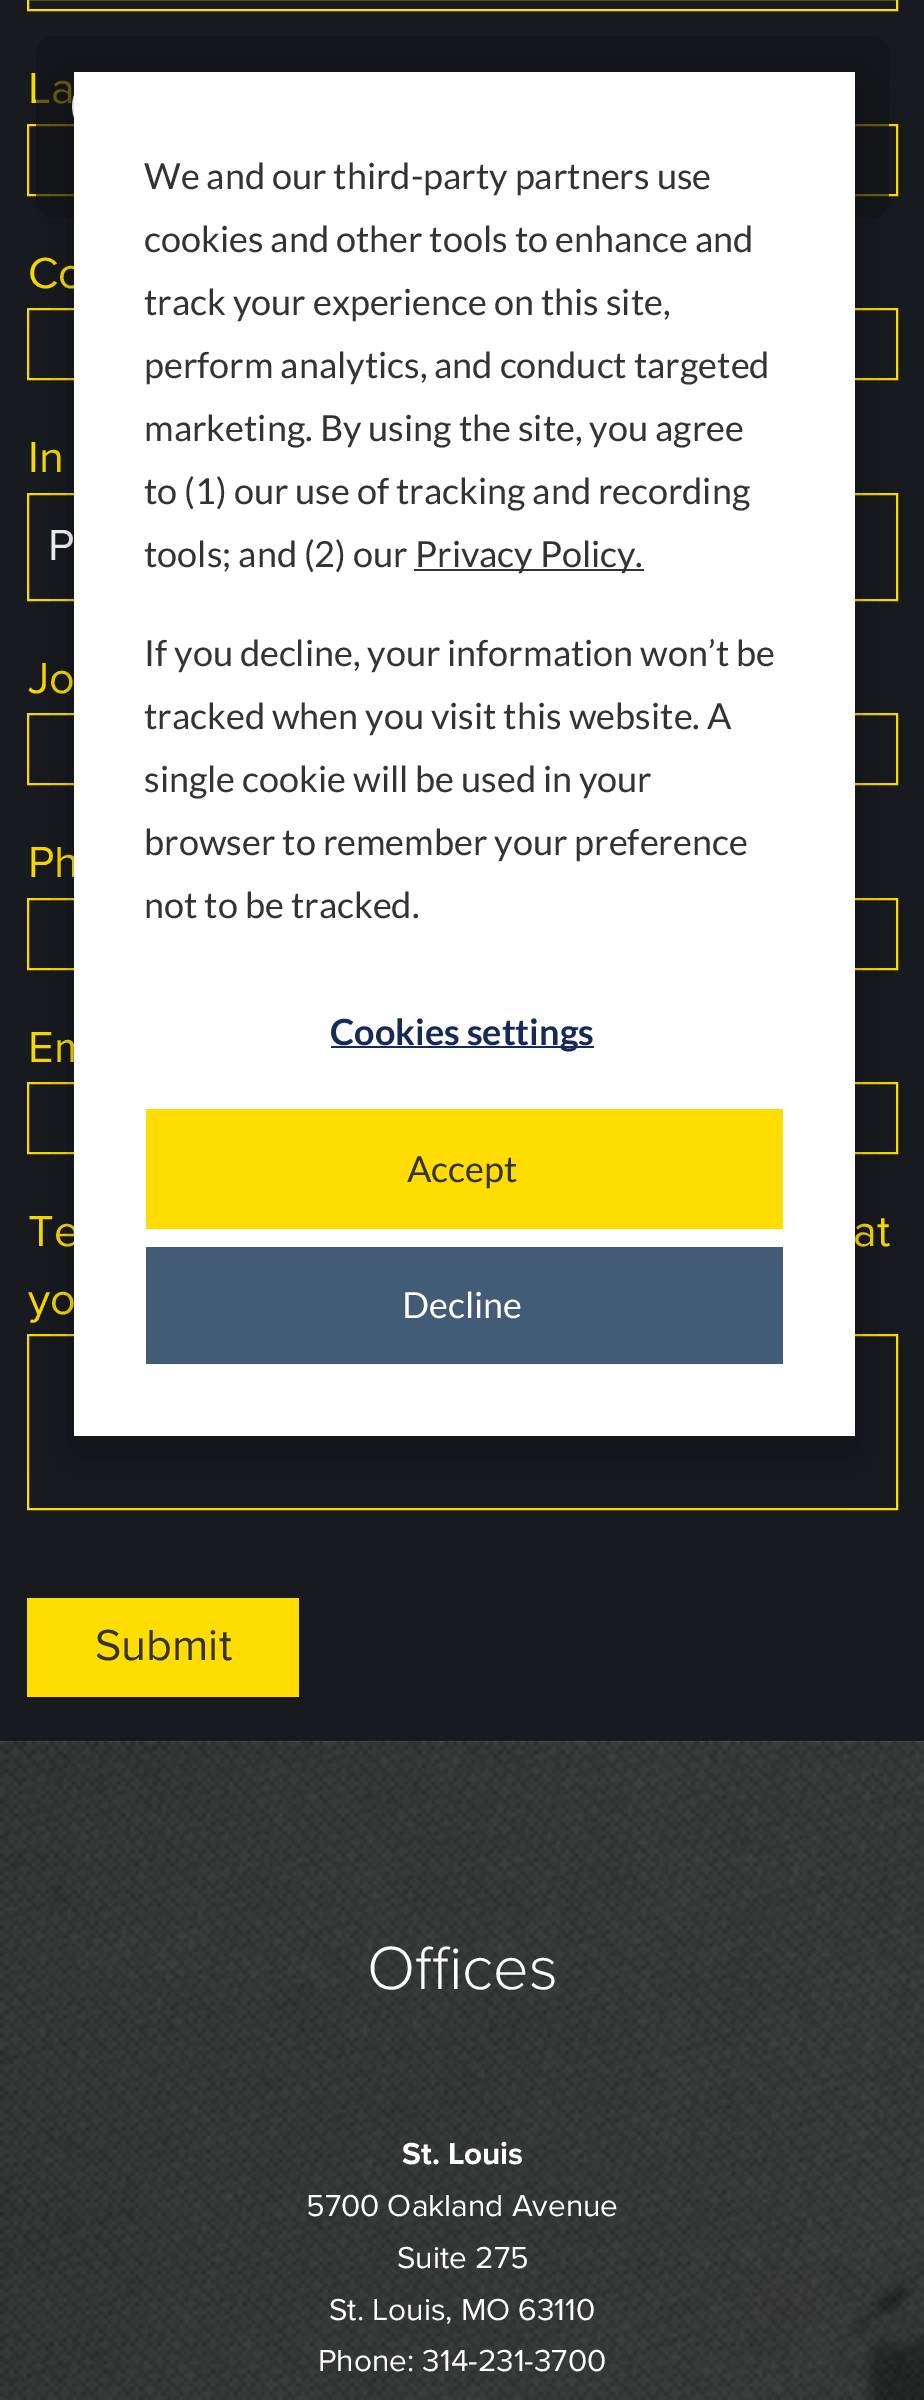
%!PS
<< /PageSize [924 2400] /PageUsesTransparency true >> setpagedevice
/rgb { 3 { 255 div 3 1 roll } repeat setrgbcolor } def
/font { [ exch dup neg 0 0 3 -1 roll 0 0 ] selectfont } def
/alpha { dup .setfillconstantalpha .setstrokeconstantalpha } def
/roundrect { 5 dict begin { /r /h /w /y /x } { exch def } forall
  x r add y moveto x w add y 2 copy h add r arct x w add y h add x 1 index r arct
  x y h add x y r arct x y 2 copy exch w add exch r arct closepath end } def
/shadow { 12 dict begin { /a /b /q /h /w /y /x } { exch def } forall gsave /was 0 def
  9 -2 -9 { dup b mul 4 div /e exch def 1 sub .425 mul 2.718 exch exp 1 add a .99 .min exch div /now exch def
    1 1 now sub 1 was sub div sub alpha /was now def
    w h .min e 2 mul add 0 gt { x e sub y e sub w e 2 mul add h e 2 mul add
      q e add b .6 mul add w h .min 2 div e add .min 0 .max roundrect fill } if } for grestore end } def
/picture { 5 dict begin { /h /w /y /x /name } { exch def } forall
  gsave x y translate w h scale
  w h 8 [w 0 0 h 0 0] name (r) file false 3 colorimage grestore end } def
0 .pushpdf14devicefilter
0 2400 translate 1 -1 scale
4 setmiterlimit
23 26 31 rgb
0 0 924 2400 rectfill
255 221 0 rgb
2 setlinewidth
28 -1 869 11 rectstroke
28 125 869 70 rectstroke
28 309 869 70 rectstroke
28 494 869 106 rectstroke
28 714 869 70 rectstroke
28 899 869 70 rectstroke
28 1083 869 70 rectstroke
28 1335 869 174 rectstroke
27 1598 272 99 rectfill
(img/2.rgb) 0 1741 924 659 picture
/ProximaNova-Regular 45 font
28 103 moveto (La) show
0.63 alpha
17 20 23 rgb
36 36 853 182 18 roundrect fill
1 alpha
(img/1.rgb) 72 94 2 24 picture
255 221 0 rgb
28 288 moveto (Co) show
28 472 moveto (In) show
255 255 255 rgb
48 560 moveto (P) show
255 221 0 rgb
[
  [(Jo) 28 693]
  [(Ph) 28 877]
  [(Em) 28 1062]
  [(Te) 28 1246]
  [(at) 853 1246]
  [(yo) 28 1314]
] { aload pop moveto show } forall
51 51 51 rgb
95 1660 moveto (Submit) show
/ProximaNova-Light 63 font
255 255 255 rgb
367 1989 moveto (Offices) show
/ProximaNova-Bold 31.5 font
402 2164 moveto (St. Louis) show
/ProximaNova-Regular 31.5 font
[
  [(5700 Oakland Avenue) 306 2216]
  [(Suite 275) 397 2268]
  [(St. Louis, MO 63110) 329 2320]
  [(Phone: 314-231-3700) 318 2371]
] { aload pop moveto show } forall
0 0 0 rgb
74 90 781 1364 0 31.5 0.28 shadow
255 255 255 rgb
74 72 781 1364 rectfill
/Lato-Regular 36 font
51 51 51 rgb
[
  [(We and our third-party partners use) 144 189]
  [(cookies and other tools to enhance and) 144 252]
  [(track your experience on this site,) 144 315]
  [(perform analytics, and conduct targeted) 144 378]
  [(marketing. By using the site, you agree) 144 441]
  [(to \(1\) our use of tracking and recording) 144 504]
  [(tools; and \(2\) our) 144 567]
] { aload pop moveto show } forall
414 569 230 2 rectfill
[
  [(Privacy Policy.) 415 567]
  [(If you decline, your information won’t be) 144 666]
  [(tracked when you visit this website. A) 144 729]
  [(single cookie will be used in your) 144 792]
  [(browser to remember your preference) 144 855]
  [(not to be tracked.) 144 918]
] { aload pop moveto show } forall
21 41 90 rgb
331 1046 263 2 rectfill
/Lato-Bold 36 font
330 1045 moveto (Cookies settings) show
255 221 0 rgb
146 1109 637 120 rectfill
/Lato-Regular 36 font
51 51 51 rgb
407 1182 moveto (Accept) show
66 91 118 rgb
146 1247 637 117 rectfill
255 255 255 rgb
402 1318 moveto (Decline) show
.poppdf14devicefilter showpage
